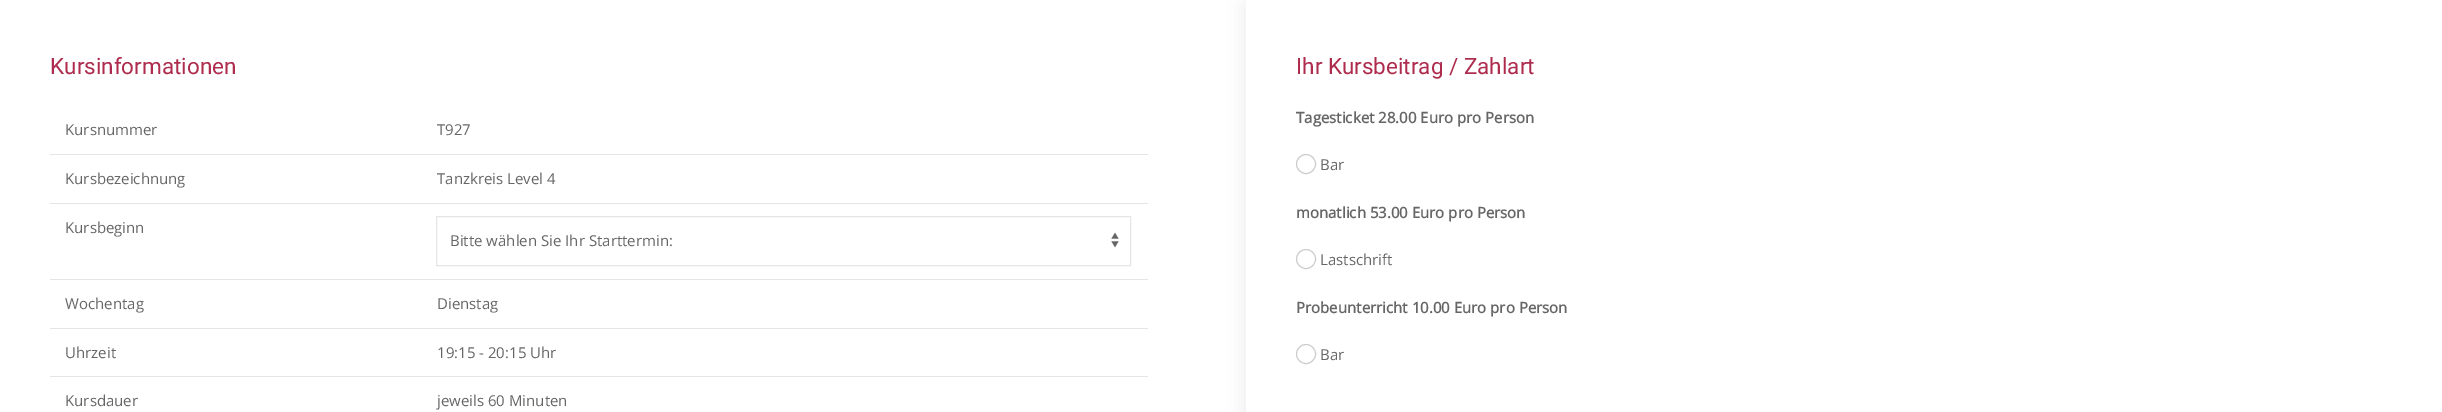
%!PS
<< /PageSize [2442 412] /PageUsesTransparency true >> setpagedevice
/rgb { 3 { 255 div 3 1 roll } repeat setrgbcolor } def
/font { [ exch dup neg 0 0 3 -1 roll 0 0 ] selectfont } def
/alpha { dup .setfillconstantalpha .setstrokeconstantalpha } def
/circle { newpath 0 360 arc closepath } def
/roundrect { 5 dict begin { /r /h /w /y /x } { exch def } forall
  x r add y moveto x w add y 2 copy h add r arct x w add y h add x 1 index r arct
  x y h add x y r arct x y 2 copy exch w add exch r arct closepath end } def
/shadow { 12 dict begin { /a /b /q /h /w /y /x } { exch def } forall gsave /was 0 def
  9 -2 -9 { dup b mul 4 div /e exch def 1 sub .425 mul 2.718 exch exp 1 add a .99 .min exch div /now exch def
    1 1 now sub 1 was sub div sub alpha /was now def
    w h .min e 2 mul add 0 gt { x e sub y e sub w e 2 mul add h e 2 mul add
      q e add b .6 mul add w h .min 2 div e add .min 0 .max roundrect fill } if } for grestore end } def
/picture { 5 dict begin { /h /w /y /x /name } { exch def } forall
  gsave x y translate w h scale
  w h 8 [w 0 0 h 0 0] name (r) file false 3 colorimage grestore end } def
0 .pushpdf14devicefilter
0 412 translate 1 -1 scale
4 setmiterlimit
255 255 255 rgb
0 0 2442 412 rectfill
229 229 229 rgb
50 154 1098 1 rectfill
50 203 1098 1 rectfill
(img/1.rgb) 1111 232 8 16 picture
436.5 216.5 694 49 rectstroke
[
  [50 279 1098 1 229 229 229]
  [50 328 1098 1 229 229 229]
  [50 376 1098 1 229 229 229]
] { aload pop rgb rectfill } forall
0 0 0 rgb
1246 6 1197 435 0 9.5 0.08 shadow
255 255 255 rgb
1246 0 1196 412 rectfill
204 204 204 rgb
1306 164 9.5 circle stroke
1306 259 9.5 circle stroke
1306 354 9.5 circle stroke
/Roboto-Regular 22.5 font
174 45 78 rgb
50 74 moveto (Kursinformationen) show
/OpenSans-Regular 15 font
102 102 102 rgb
[
  [(Kursnummer) 65 135]
  [(T927) 437 135]
  [(Kursbezeichnung) 65 184]
  [(Tanzkreis Level 4) 437 184]
  [(Kursbeginn) 65 233]
  [(Bitte wählen Sie Ihr Starttermin:) 450 246]
  [(Wochentag) 65 309]
  [(Dienstag) 437 309]
  [(Uhrzeit) 65 358]
  [(19:15 - 20:15 Uhr) 437 358]
  [(Kursdauer) 65 406]
  [(jeweils 60 Minuten) 437 406]
] { aload pop moveto show } forall
/Roboto-Regular 22.5 font
174 45 78 rgb
1296 74 moveto (Ihr Kursbeitrag / Zahlart) show
/OpenSans-Bold 15 font
102 102 102 rgb
1296 123 moveto (Tagesticket 28.00 Euro pro Person) show
/OpenSans-Regular 15 font
1320 170 moveto (Bar) show
/OpenSans-Bold 15 font
1296 218 moveto (monatlich 53.00 Euro pro Person) show
/OpenSans-Regular 15 font
1320 265 moveto (Lastschrift) show
/OpenSans-Bold 15 font
1296 313 moveto (Probeunterricht 10.00 Euro pro Person) show
/OpenSans-Regular 15 font
1320 360 moveto (Bar) show
.poppdf14devicefilter showpage
